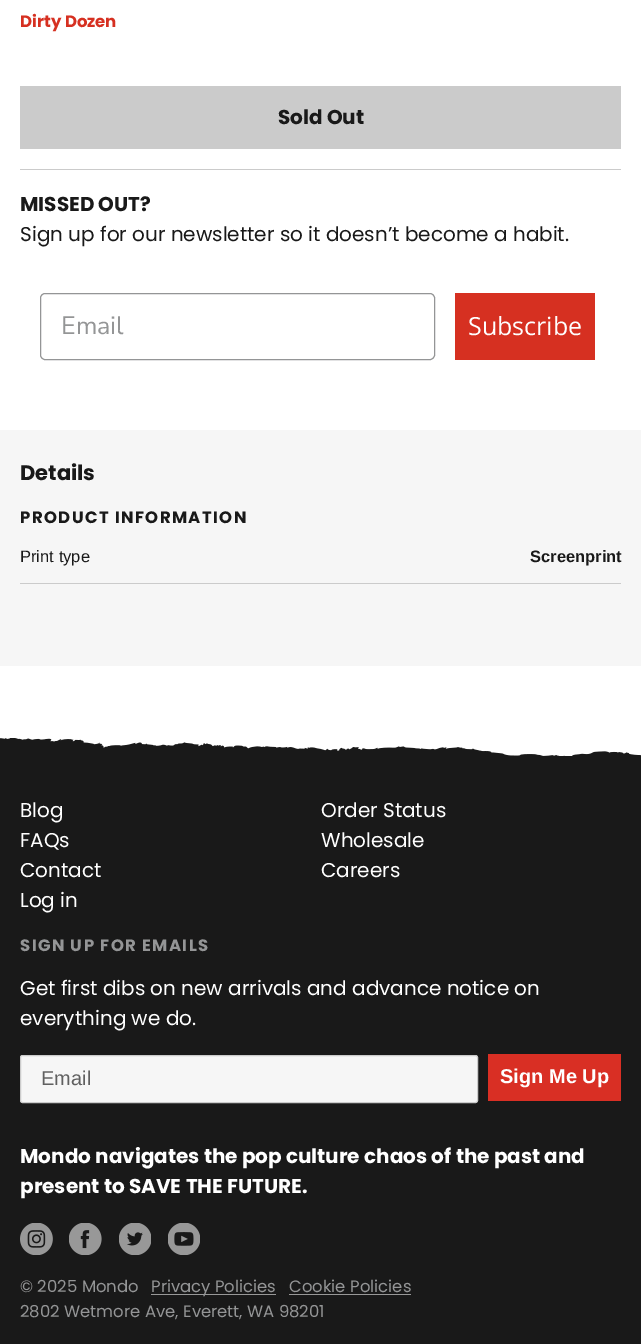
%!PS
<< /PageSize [641 1344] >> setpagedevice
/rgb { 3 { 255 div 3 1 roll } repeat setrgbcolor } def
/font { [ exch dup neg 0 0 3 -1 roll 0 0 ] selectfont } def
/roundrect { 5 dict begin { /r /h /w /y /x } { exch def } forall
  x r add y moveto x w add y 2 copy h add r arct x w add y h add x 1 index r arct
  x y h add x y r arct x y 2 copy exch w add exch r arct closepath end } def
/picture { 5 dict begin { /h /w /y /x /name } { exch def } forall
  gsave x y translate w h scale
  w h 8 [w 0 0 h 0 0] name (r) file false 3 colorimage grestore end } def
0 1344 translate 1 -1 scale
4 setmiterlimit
255 255 255 rgb
0 0 641 1344 rectfill
203 203 203 rgb
20 86 601 63 rectfill
20 169 601 1 rectfill
148 149 150 rgb
40.5 293.5 394 66 4.5 roundrect stroke
[
  [455 293 140 67 214 48 33]
  [0 430 641 236 246 246 246]
  [20 583 601 1 203 203 203]
  [0 756 641 588 25 25 25]
] { aload pop rgb rectfill } forall
(img/1.rgb) 0 738 641 18 picture
246 246 246 rgb
20.5 1055.5 457 47 2 roundrect gsave fill grestore
203 203 203 rgb
stroke
217 47 36 rgb
488 1054 133 47 rectfill
(img/2.rgb) 20 1223 33 32 picture
(img/3.rgb) 69 1223 33 32 picture
(img/4.rgb) 119 1223 32 32 picture
(img/5.rgb) 168 1223 32 32 picture
152 152 152 rgb
151 1294 125 1 rectfill
289 1294 122 1 rectfill
/Poppins-Bold 16.5 font
214 48 33 rgb
20 27 moveto (Dirty Dozen) show
/Poppins-Bold 20 font
25 25 25 rgb
278 124 moveto (Sold Out) show
20 211 moveto (MISSED OUT?) show
/Poppins-Regular 20 font
20 241 moveto (Sign up for our newsletter so it doesn’t become a habit.) show
/NunitoSans-Regular 25 font
148 149 150 rgb
61 334 moveto (Email) show
/OpenSans-Regular 25 font
255 255 255 rgb
468 335 moveto (Subscribe) show
/Poppins-Bold 21 font
25 25 25 rgb
20 480 moveto (Details) show
/Poppins-Bold 16.5 font
20 523 moveto 1.4 0 (PRODUCT INFORMATION) ashow
/LiberationSans-Regular 16.5 font
20 562 moveto (Print type) show
/LiberationSans-Bold 16.5 font
530 562 moveto (Screenprint) show
/Poppins-Regular 20 font
255 255 255 rgb
[
  [(Blog) 20 817]
  [(Order Status) 321 817]
  [(FAQs) 20 847]
  [(Wholesale) 321 847]
  [(Contact) 20 877]
  [(Careers) 321 877]
  [(Log in) 20 907]
] { aload pop moveto show } forall
/Poppins-Bold 16.5 font
148 149 150 rgb
20 951 moveto 1.4 0 (SIGN UP FOR EMAILS) ashow
/Poppins-Regular 20 font
255 255 255 rgb
20 995 moveto (Get first dibs on new arrivals and advance notice on) show
20 1025 moveto (everything we do.) show
/LiberationSans-Regular 20 font
96 96 96 rgb
41 1085 moveto (Email) show
/LiberationSans-Bold 20 font
255 255 255 rgb
500 1083 moveto (Sign Me Up) show
/Poppins-Bold 20 font
20 1163 moveto (Mondo navigates the pop culture chaos of the past and) show
20 1193 moveto (present to SAVE THE FUTURE.) show
/Poppins-Regular 16.5 font
148 149 150 rgb
[
  [(© 2025 Mondo) 20 1292]
  [(Privacy Policies) 151 1292]
  [(Cookie Policies) 289 1292]
  [(2802 Wetmore Ave, Everett, WA 98201) 20 1317]
] { aload pop moveto show } forall
showpage
